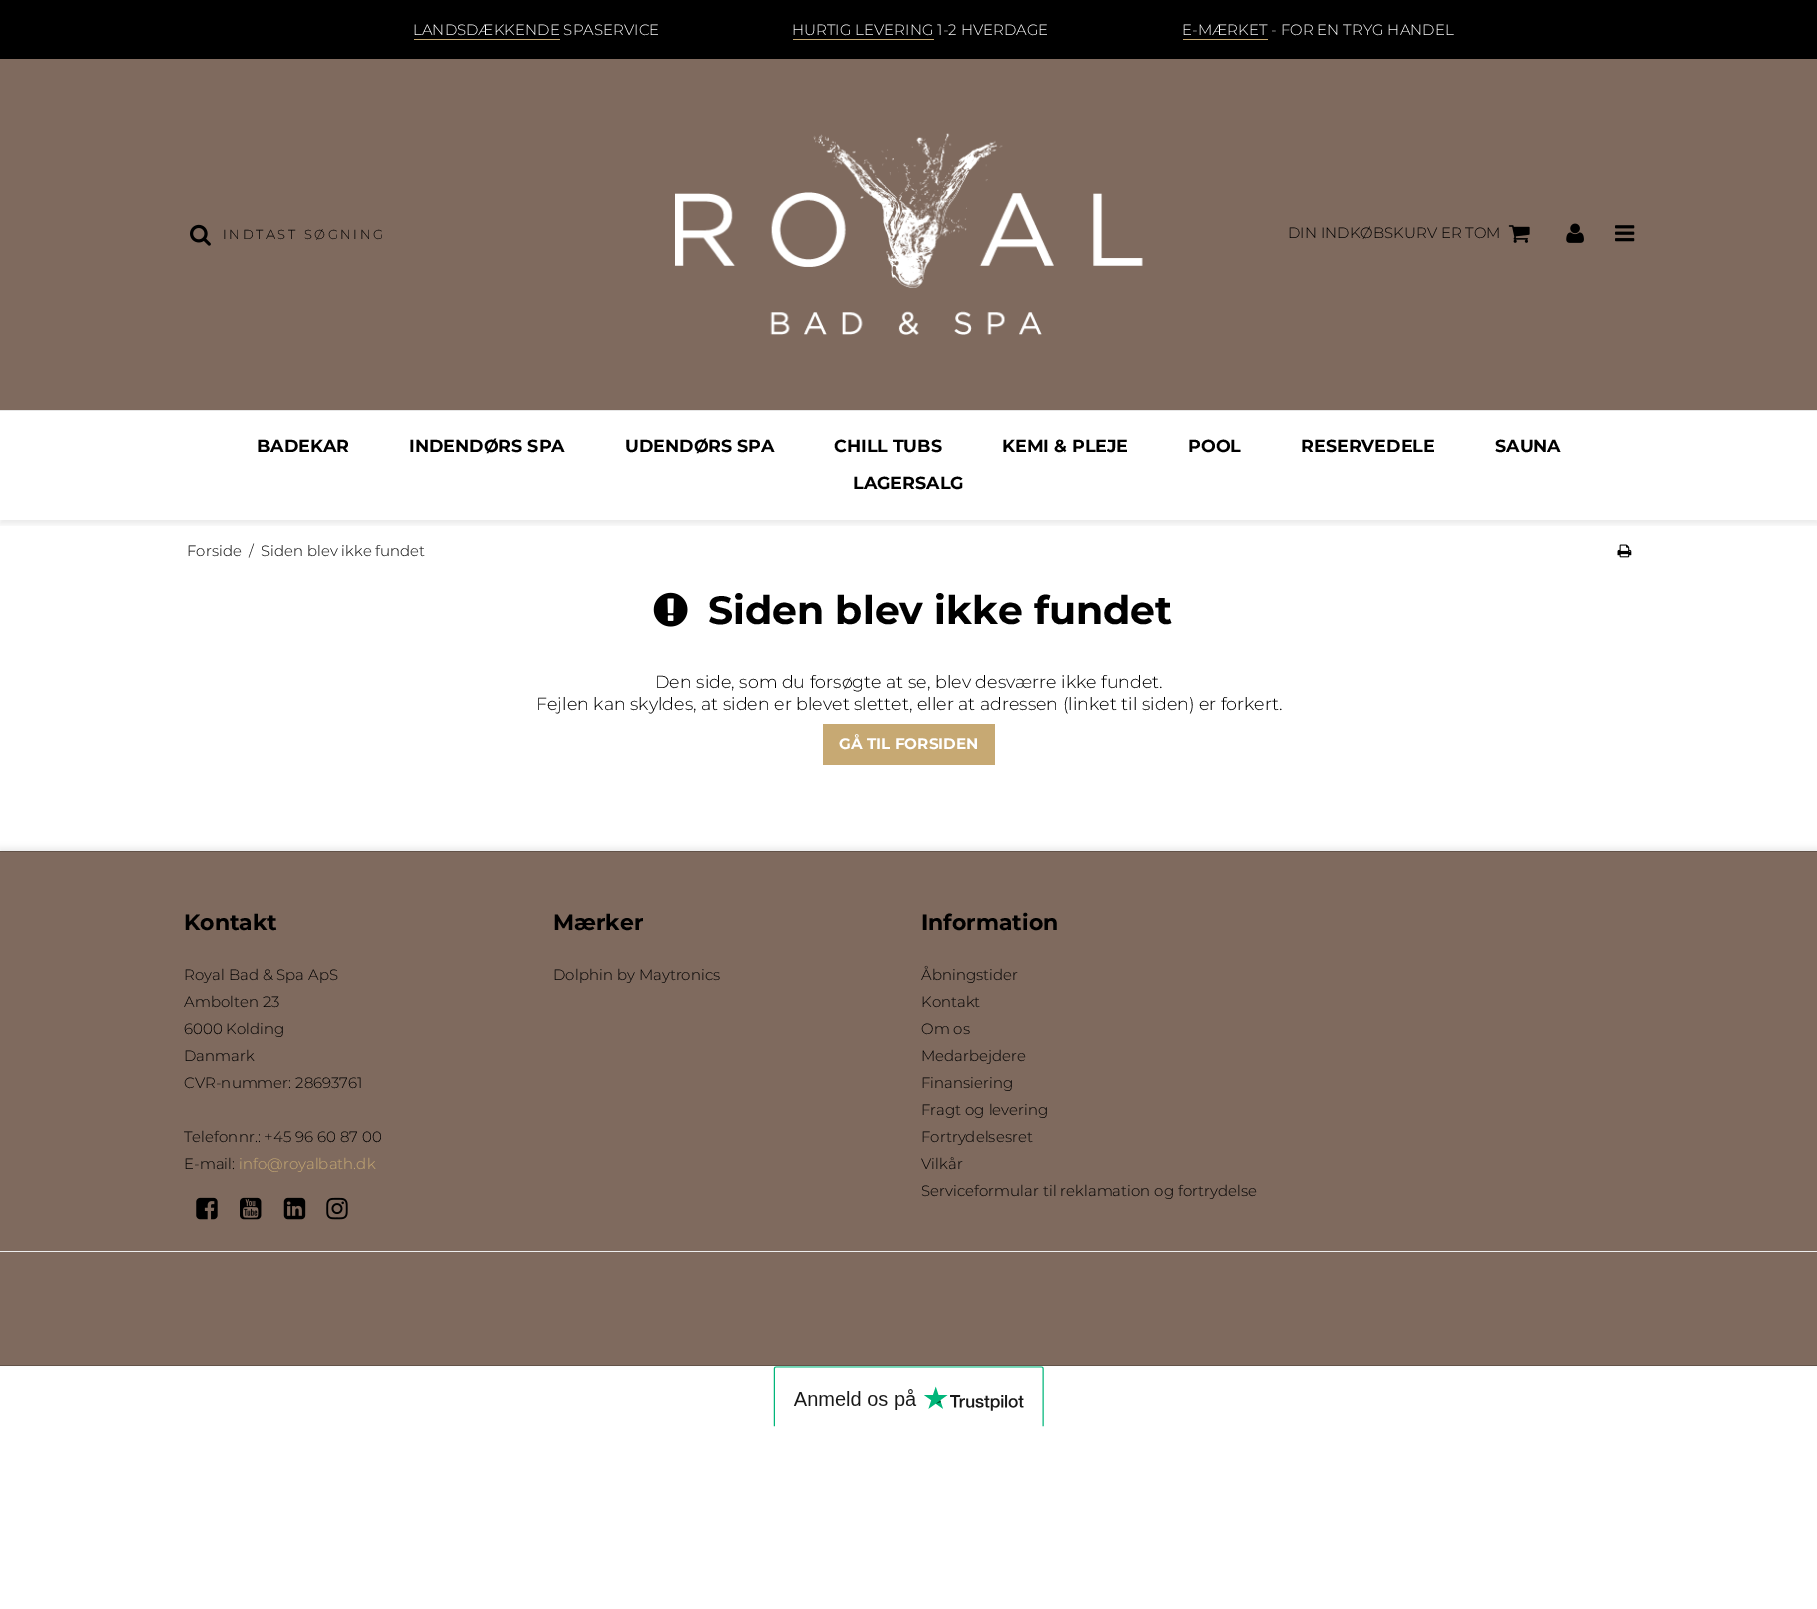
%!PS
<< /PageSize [1817 1609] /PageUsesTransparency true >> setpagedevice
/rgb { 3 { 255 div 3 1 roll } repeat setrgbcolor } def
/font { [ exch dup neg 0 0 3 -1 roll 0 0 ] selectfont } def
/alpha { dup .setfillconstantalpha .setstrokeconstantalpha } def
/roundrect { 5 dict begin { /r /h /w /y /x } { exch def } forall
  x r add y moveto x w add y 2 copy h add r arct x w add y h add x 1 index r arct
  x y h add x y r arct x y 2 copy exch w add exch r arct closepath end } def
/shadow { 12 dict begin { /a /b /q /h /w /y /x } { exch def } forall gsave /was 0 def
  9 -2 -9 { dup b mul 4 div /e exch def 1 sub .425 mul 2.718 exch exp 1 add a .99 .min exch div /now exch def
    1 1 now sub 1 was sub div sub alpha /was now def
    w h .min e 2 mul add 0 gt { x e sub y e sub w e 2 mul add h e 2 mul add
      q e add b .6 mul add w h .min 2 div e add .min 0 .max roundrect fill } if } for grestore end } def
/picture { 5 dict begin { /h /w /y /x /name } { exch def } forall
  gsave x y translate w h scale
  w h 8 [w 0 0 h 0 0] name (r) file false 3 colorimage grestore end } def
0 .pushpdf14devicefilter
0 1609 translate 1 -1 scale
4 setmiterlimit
255 255 255 rgb
0 0 1817 1609 rectfill
[
  [0 0 1817 59 0 0 0]
  [414 39 146 1 199 169 115]
  [793 39 141 1 199 169 115]
  [1183 39 85 1 199 169 115]
  [0 59 1817 351 127 106 94]
] { aload pop rgb rectfill } forall
(img/1.rgb) 190 224 21 22 picture
(img/2.rgb) 675 133 468 202 picture
(img/3.rgb) 1508 225 22 18 picture
(img/4.rgb) 1566 223 18 20 picture
(img/5.rgb) 1615 225 20 17 picture
gsave
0 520 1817 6 rectclip
0 0 0 rgb
0 414 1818 110 0 3 0.08 shadow
grestore
230 230 230 rgb
0 410 1817 1 rectfill
(img/6.rgb) 1617 544 15 14 picture
(img/7.rgb) 653 592 35 35 picture
199 169 115 rgb
823 724 172 41 rectfill
0 0 0 rgb
0 848 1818 515 0 3 0.08 shadow
[
  [0 852 1817 513 127 106 94]
  [0 851 1817 1 98 82 72]
  [0 1365 1817 1 98 82 72]
] { aload pop rgb rectfill } forall
(img/8.rgb) 196 1197 22 23 picture
(img/9.rgb) 240 1197 22 23 picture
(img/10.rgb) 283 1197 23 23 picture
(img/11.rgb) 326 1197 22 23 picture
238 238 238 rgb
0 1251 1817 1 rectfill
(img/12.rgb) 773 1366 271 61 picture
/Montserrat-Light 15 font
255 255 255 rgb
[
  [(LANDSDÆKKENDE SPASERVICE) 413 35]
  [(HURTIG LEVERING 1-2 HVERDAGE) 792 35]
  [(E-MÆRKET - FOR EN TRYG HANDEL) 1182 35]
] { aload pop moveto show } forall
/Montserrat-Light 13.1 font
0 0 0 rgb
223 239 moveto 2.5 0 (INDTAST SØGNING) ashow
/Montserrat-Light 15 font
1288 238 moveto (DIN INDKØBSKURV ER TOM) show
/Montserrat-Bold 17.5 font
[
  [(BADEKAR) 257 452]
  [(INDENDØRS SPA) 409 452]
  [(UDENDØRS SPA) 625 452]
  [(CHILL TUBS) 834 452]
  [(KEMI & PLEJE) 1002 452]
  [(POOL) 1188 452]
  [(RESERVEDELE) 1301 452]
  [(SAUNA) 1495 452]
  [(LAGERSALG) 853 489]
] { aload pop moveto show } forall
/Montserrat-Light 14.9 font
[
  [(Forside) 187 556]
  [(/) 249 556]
  [(Siden blev ikke fundet) 261 556]
] { aload pop moveto show } forall
/Montserrat-Bold 39.4 font
708 624 moveto (Siden blev ikke fundet) show
/Montserrat-Light 17.5 font
655 688 moveto (Den side, som du forsøgte at se, blev desværre ikke fundet.) show
536 710 moveto (Fejlen kan skyldes, at siden er blevet slettet, eller at adressen \(linket til siden\) er forkert.) show
/Montserrat-Bold 15.25 font
255 255 255 rgb
839 749 moveto (GÅ TIL FORSIDEN) show
/Montserrat-Bold 22 font
0 0 0 rgb
184 930 moveto (Kontakt) show
/Montserrat-Light 15 font
[
  [(Royal Bad & Spa ApS) 184 980]
  [(Ambolten 23) 184 1007]
  [(6000 Kolding) 184 1034]
  [(Danmark) 184 1061]
  [(CVR-nummer: 28693761) 184 1088]
  [(Telefonnr.: +45 96 60 87 00) 184 1142]
  [(E-mail:) 184 1169]
] { aload pop moveto show } forall
199 169 115 rgb
239 1169 moveto (info@royalbath.dk) show
/Montserrat-Bold 22 font
0 0 0 rgb
553 930 moveto (Mærker) show
/Montserrat-Light 15 font
553 980 moveto (Dolphin by Maytronics) show
/Montserrat-Bold 22 font
921 930 moveto (Information) show
/Montserrat-Light 15 font
[
  [(Åbningstider) 921 980]
  [(Kontakt) 921 1007]
  [(Om os) 921 1034]
  [(Medarbejdere) 921 1061]
  [(Finansiering) 921 1088]
  [(Fragt og levering) 921 1115]
  [(Fortrydelsesret) 921 1142]
  [(Vilkår) 921 1169]
  [(Serviceformular til reklamation og fortrydelse) 921 1196]
] { aload pop moveto show } forall
.poppdf14devicefilter showpage
